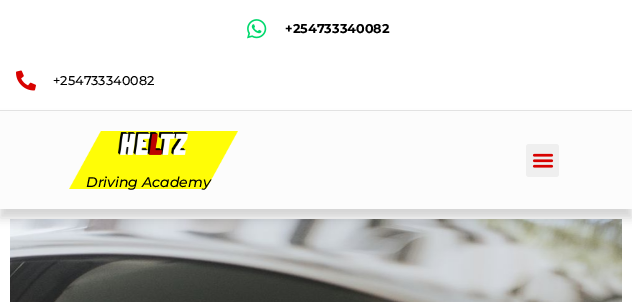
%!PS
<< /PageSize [632 302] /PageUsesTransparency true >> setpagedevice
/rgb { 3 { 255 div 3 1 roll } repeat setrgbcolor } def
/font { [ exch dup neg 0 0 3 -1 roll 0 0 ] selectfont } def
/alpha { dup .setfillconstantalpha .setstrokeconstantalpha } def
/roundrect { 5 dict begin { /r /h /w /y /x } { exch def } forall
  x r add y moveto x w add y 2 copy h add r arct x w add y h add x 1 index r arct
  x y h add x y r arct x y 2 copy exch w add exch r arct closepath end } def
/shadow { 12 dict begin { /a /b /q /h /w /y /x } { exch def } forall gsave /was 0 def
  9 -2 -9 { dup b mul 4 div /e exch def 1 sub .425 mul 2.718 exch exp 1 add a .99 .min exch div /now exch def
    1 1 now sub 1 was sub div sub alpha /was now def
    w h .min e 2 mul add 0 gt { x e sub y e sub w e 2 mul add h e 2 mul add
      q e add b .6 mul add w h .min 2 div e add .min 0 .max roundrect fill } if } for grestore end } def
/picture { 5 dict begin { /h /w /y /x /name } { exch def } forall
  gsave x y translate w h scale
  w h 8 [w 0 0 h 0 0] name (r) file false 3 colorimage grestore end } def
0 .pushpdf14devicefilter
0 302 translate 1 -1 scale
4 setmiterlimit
255 255 255 rgb
0 0 632 302 rectfill
(img/1.rgb) 247 19 20 20 picture
(img/2.rgb) 16 70 20 21 picture
(img/6.rgb) 10 219 612 83 picture
0 0 0 rgb
0 119 632 99 0 5 0.17 shadow
252 252 252 rgb
0 113 632 96 rectfill
226 226 226 rgb
0 110 632 1 rectfill
239 239 239 rgb
526 144 33 33 3 roundrect fill
(img/3.rgb) 532 153 22 15 picture
(img/4.rgb) 69 131 169 58 picture
(img/5.rgb) 118 132 70 23 picture
/Montserrat-Bold 12.75 font
0 0 0 rgb
285 33 moveto (+254733340082) show
/Montserrat-Medium 12.75 font
53 85 moveto (+254733340082) show
/Montserrat-MediumItalic 14 font
86 187 moveto (Driving Academy) show
.poppdf14devicefilter showpage
